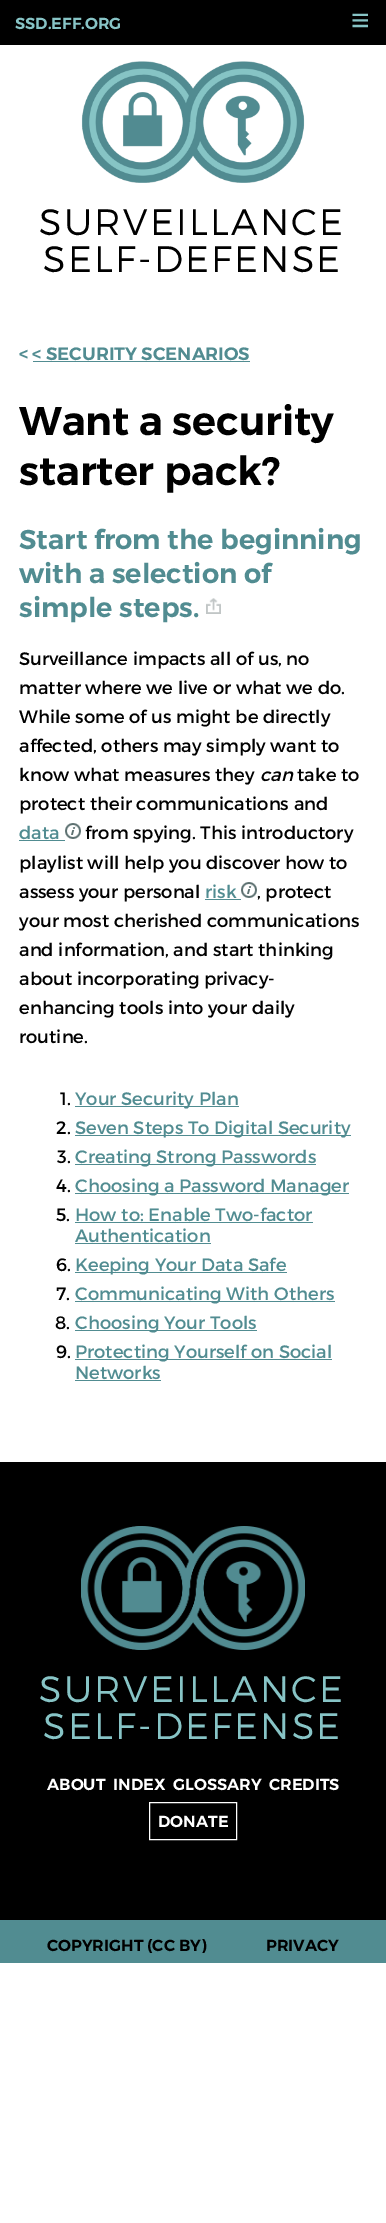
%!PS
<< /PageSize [386 2223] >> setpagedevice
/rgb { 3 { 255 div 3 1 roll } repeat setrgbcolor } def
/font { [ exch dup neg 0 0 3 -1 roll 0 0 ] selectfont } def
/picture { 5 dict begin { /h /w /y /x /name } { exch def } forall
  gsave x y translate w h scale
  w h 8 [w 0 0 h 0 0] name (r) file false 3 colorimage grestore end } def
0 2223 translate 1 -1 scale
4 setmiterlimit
255 255 255 rgb
0 0 386 2223 rectfill
0 0 0 rgb
0 0 386 45 rectfill
(img/1.rgb) 81 61 224 122 picture
81 140 145 rgb
33 361 217 1 rectfill
(img/2.rgb) 206 598 15 16 picture
19 840 46 1 rectfill
(img/3.rgb) 65 823 16 16 picture
205 899 36 1 rectfill
(img/3.rgb) 241 882 16 16 picture
[
  [75 1106 164 1 81 140 145]
  [75 1135 276 1 81 140 145]
  [75 1164 241 1 81 140 145]
  [75 1193 274 1 81 140 145]
  [75 1222 238 1 81 140 145]
  [75 1243 136 1 81 140 145]
  [75 1272 212 1 81 140 145]
  [75 1301 260 1 81 140 145]
  [75 1330 182 1 81 140 145]
  [75 1359 257 1 81 140 145]
  [75 1380 86 1 81 140 145]
  [0 1462 386 458 0 0 0]
] { aload pop rgb rectfill } forall
(img/4.rgb) 81 1526 224 124 picture
255 255 255 rgb
149.5 1802.5 87 37 rectstroke
81 140 145 rgb
0 1920 386 43 rectfill
/Montserrat-SemiBold 16 font
135 196 198 rgb
15 29 moveto (SSD.EFF.ORG) show
/LiberationSans-Bold 32 font
351 31 moveto (≡) show
/Montserrat-Light 36.75 font
0 0 0 rgb
39 235 moveto 2.25 0 (SURVEILLANCE) ashow
43 272 moveto 2.25 0 (SELF-DEFENSE) ashow
/Montserrat-SemiBold 18 font
81 140 145 rgb
19 360 moveto (< < SECURITY SCENARIOS) show
/Montserrat-SemiBold 40 font
0 0 0 rgb
19 435 moveto (Want a security) show
19 485 moveto (starter pack?) show
/Montserrat-SemiBold 27.25 font
81 140 145 rgb
[
  [(Start from the beginning) 19 549]
  [(with a selection of) 19 583]
  [(simple steps.) 19 617]
] { aload pop moveto show } forall
/Montserrat-Regular 18 font
0 0 0 rgb
[
  [(Surveillance impacts all of us, no) 19 665]
  [(matter where we live or what we do.) 19 694]
  [(While some of us might be directly) 19 723]
  [(affected, others may simply want to) 19 752]
  [(know what measures they) 19 781]
] { aload pop moveto show } forall
/Montserrat-Italic 18 font
260 781 moveto (can) show
/Montserrat-Regular 18 font
297 781 moveto (take to) show
19 810 moveto (protect their communications and) show
81 140 145 rgb
19 839 moveto (data) show
0 0 0 rgb
[
  [(from spying. This introductory) 85 839]
  [(playlist will help you discover how to) 19 869]
  [(assess your personal) 19 898]
] { aload pop moveto show } forall
81 140 145 rgb
205 898 moveto (risk) show
0 0 0 rgb
[
  [(, protect) 257 898]
  [(your most cherished communications) 19 927]
  [(and information, and start thinking) 19 956]
  [(about incorporating privacy-) 19 985]
  [(enhancing tools into your daily) 19 1014]
  [(routine.) 19 1043]
  [(1.) 60 1105]
] { aload pop moveto show } forall
81 140 145 rgb
75 1105 moveto (Your Security Plan) show
0 0 0 rgb
56 1134 moveto (2.) show
81 140 145 rgb
75 1134 moveto (Seven Steps To Digital Security) show
0 0 0 rgb
57 1163 moveto (3.) show
81 140 145 rgb
75 1163 moveto (Creating Strong Passwords) show
0 0 0 rgb
56 1192 moveto (4.) show
81 140 145 rgb
75 1192 moveto (Choosing a Password Manager) show
0 0 0 rgb
56 1221 moveto (5.) show
81 140 145 rgb
75 1221 moveto (How to: Enable Two-factor) show
75 1242 moveto (Authentication) show
0 0 0 rgb
56 1271 moveto (6.) show
81 140 145 rgb
75 1271 moveto (Keeping Your Data Safe) show
0 0 0 rgb
56 1300 moveto (7.) show
81 140 145 rgb
75 1300 moveto (Communicating With Others) show
0 0 0 rgb
55 1329 moveto (8.) show
81 140 145 rgb
75 1329 moveto (Choosing Your Tools) show
0 0 0 rgb
56 1358 moveto (9.) show
81 140 145 rgb
75 1358 moveto (Protecting Yourself on Social) show
75 1379 moveto (Networks) show
/Montserrat-Light 36.75 font
135 196 198 rgb
39 1702 moveto 2.25 0 (SURVEILLANCE) ashow
43 1739 moveto 2.25 0 (SELF-DEFENSE) ashow
/Montserrat-SemiBold 16 font
255 255 255 rgb
[
  [(ABOUT) 47 1790]
  [(INDEX) 113 1790]
  [(GLOSSARY) 173 1790]
  [(CREDITS) 269 1790]
  [(DONATE) 158 1827]
] { aload pop moveto show } forall
0 0 0 rgb
47 1951 moveto (COPYRIGHT \(CC BY\)) show
266 1951 moveto (PRIVACY) show
showpage
